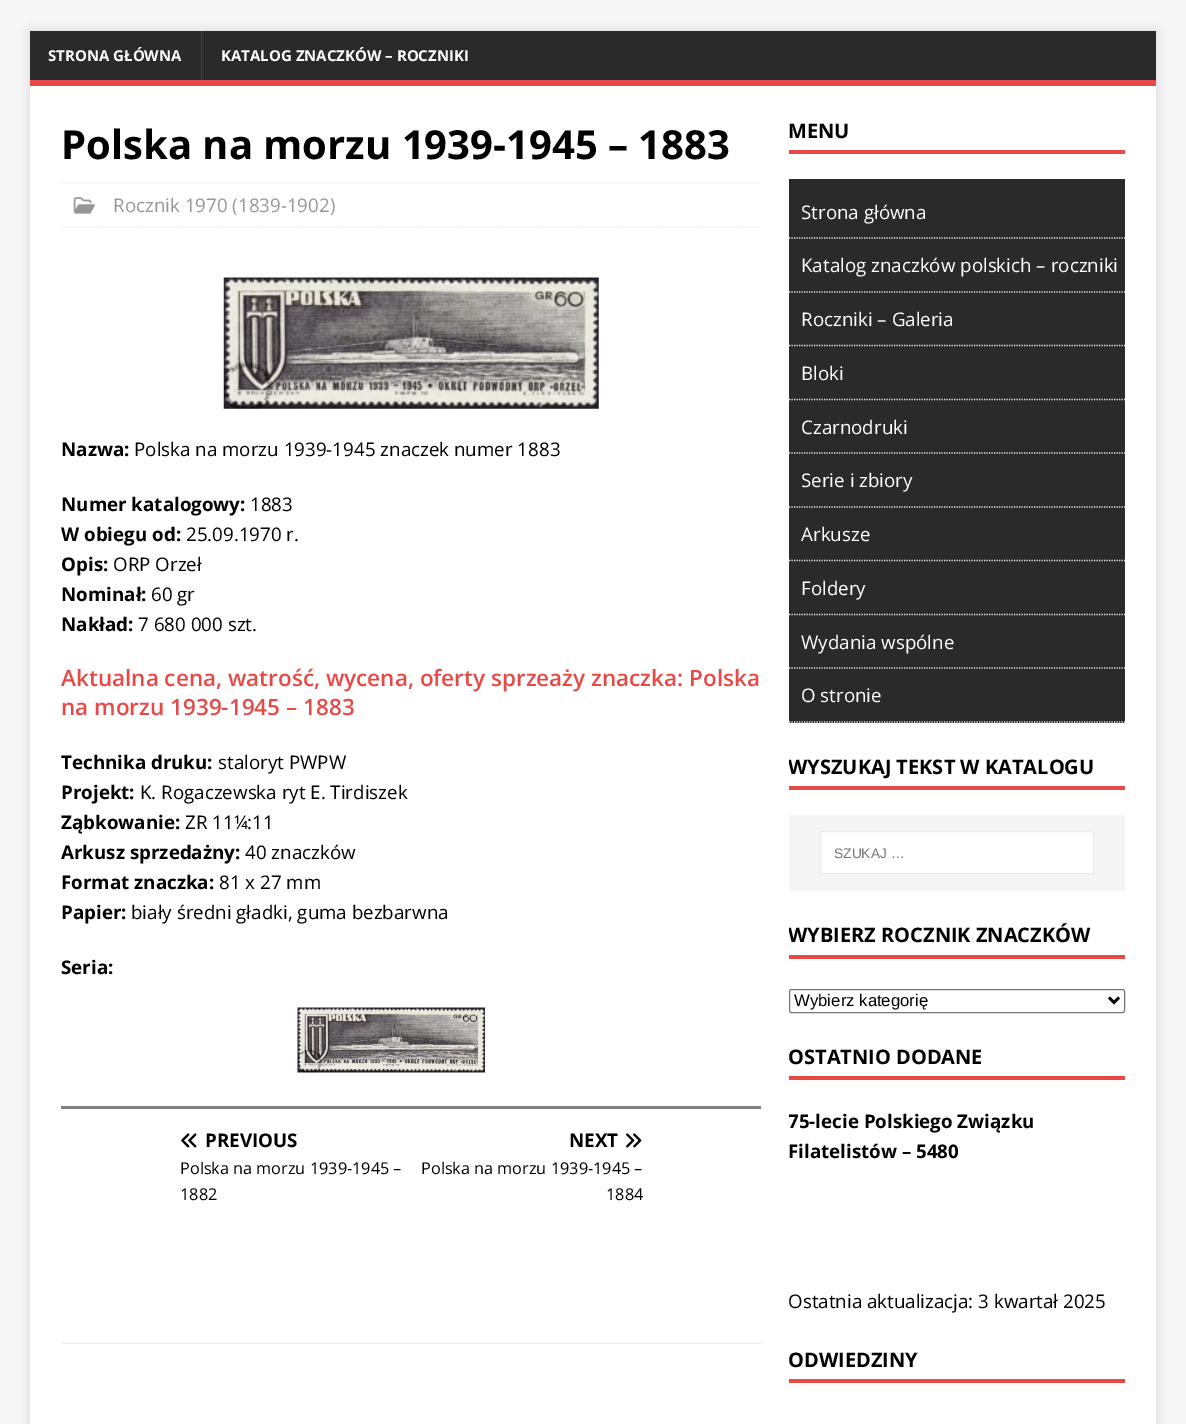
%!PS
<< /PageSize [1186 1424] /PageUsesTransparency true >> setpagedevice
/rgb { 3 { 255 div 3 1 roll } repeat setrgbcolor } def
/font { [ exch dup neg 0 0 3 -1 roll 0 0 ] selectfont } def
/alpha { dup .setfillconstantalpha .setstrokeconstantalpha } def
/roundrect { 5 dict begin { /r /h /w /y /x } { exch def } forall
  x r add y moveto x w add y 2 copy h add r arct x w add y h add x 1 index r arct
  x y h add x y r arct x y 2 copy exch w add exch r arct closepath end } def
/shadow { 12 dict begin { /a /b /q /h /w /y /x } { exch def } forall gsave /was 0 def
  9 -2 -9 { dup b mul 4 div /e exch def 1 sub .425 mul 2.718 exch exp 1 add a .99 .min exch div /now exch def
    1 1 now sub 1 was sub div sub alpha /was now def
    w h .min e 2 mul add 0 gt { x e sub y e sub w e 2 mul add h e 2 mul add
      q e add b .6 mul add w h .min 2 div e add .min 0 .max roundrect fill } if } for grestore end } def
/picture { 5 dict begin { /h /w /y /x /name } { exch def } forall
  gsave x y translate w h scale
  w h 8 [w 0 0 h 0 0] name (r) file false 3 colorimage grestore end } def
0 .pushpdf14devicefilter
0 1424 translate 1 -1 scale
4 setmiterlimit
247 247 247 rgb
0 0 1186 1424 rectfill
50 50 50 rgb
30 31 1126 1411 0 6 0.17 shadow
[
  [30 31 1126 49 42 42 42]
  [30 80 1126 6 230 73 70]
  [201 31 1 49 63 63 63]
  [30 86 1126 1338 255 255 255]
] { aload pop rgb rectfill } forall
235 235 235 rgb
1.2 setlinewidth
[1.25 1.25] 0 setdash
61 183 moveto 761 183 lineto stroke
61 227 moveto 761 227 lineto stroke
(img/1.rgb) 73 197 22 17 picture
(img/2.rgb) 223 277 376 132 picture
(img/3.rgb) 297 1007 188 66 picture
128 128 128 rgb
61 1106 700 3 rectfill
235 235 235 rgb
61 1343 700 1 rectfill
(img/4.rgb) 181 1133 16 15 picture
(img/5.rgb) 626 1133 16 15 picture
230 73 70 rgb
789 150 336 4 rectfill
42 42 42 rgb
789 179 336 544 rectfill
235 235 235 rgb
789 238 moveto 1125 238 lineto stroke
789 292 moveto 1125 292 lineto stroke
789 345.5 moveto 1125 345.5 lineto stroke
789 399.5 moveto 1125 399.5 lineto stroke
789 453 moveto 1125 453 lineto stroke
789 507 moveto 1125 507 lineto stroke
789 560.5 moveto 1125 560.5 lineto stroke
789 614.5 moveto 1125 614.5 lineto stroke
789 668 moveto 1125 668 lineto stroke
789 722 moveto 1125 722 lineto stroke
230 73 70 rgb
789 786 336 4 rectfill
245 245 245 rgb
789 815 336 76 rectfill
255 255 255 rgb
820.5 831.5 moveto 1093.5 831.5 lineto 1093.5 873.5 lineto 820.5 873.5 lineto closepath gsave fill grestore
235 235 235 rgb
1 setlinewidth
[] 0 setdash
stroke
230 73 70 rgb
789 955 336 4 rectfill
118 118 118 rgb
789.5 989.5 335 23 2 roundrect stroke
0 0 0 rgb
2.5 setlinewidth
1109 997.5 moveto 1114 1002.5 lineto 1119 997.5 lineto stroke
230 73 70 rgb
789 1076 336 4 rectfill
789 1379 336 4 rectfill
/OpenSans-Bold 15 font
255 255 255 rgb
48 61 moveto (STRONA GŁÓWNA) show
221 61 moveto (KATALOG ZNACZKÓW – ROCZNIKI) show
/OpenSans-Bold 40 font
0 0 0 rgb
61 159 moveto (Polska na morzu 1939-1945 – 1883) show
/OpenSans-Regular 18.75 font
151 151 151 rgb
113 212 moveto (Rocznik 1970 \(1839-1902\)) show
/OpenSans-Bold 18.75 font
0 0 0 rgb
61 456 moveto (Nazwa:) show
/OpenSans-Regular 18.75 font
134 456 moveto (Polska na morzu 1939-1945 znaczek numer 1883) show
/OpenSans-Bold 18.75 font
61 511 moveto (Numer katalogowy:) show
/OpenSans-Regular 18.75 font
250 511 moveto (1883) show
/OpenSans-Bold 18.75 font
61 541 moveto (W obiegu od:) show
/OpenSans-Regular 18.75 font
186 541 moveto (25.09.1970 r.) show
/OpenSans-Bold 18.75 font
61 571 moveto (Opis:) show
/OpenSans-Regular 18.75 font
113 571 moveto (ORP Orzeł) show
/OpenSans-Bold 18.75 font
61 601 moveto (Nominał:) show
/OpenSans-Regular 18.75 font
151 601 moveto (60 gr) show
/OpenSans-Bold 18.75 font
61 631 moveto (Nakład:) show
/OpenSans-Regular 18.75 font
138 631 moveto (7 680 000 szt.) show
/OpenSans-SemiBold 22.5 font
230 73 70 rgb
61 686 moveto (Aktualna cena, watrość, wycena, oferty sprzeaży znaczka: Polska) show
61 715 moveto (na morzu 1939-1945 – 1883) show
/OpenSans-Bold 18.75 font
0 0 0 rgb
61 769 moveto (Technika druku:) show
/OpenSans-Regular 18.75 font
218 769 moveto (staloryt PWPW) show
/OpenSans-Bold 18.75 font
61 799 moveto (Projekt:) show
/OpenSans-Regular 18.75 font
140 799 moveto (K. Rogaczewska ryt E. Tirdiszek) show
/OpenSans-Bold 18.75 font
61 829 moveto (Ząbkowanie:) show
/OpenSans-Regular 18.75 font
185 829 moveto (ZR 11¼:11) show
/OpenSans-Bold 18.75 font
61 859 moveto (Arkusz sprzedażny:) show
/OpenSans-Regular 18.75 font
245 859 moveto (40 znaczków) show
/OpenSans-Bold 18.75 font
61 889 moveto (Format znaczka:) show
/OpenSans-Regular 18.75 font
219 889 moveto (81 x 27 mm) show
/OpenSans-Bold 18.75 font
61 919 moveto (Papier:) show
/OpenSans-Regular 18.75 font
131 919 moveto (biały średni gładki, guma bezbarwna) show
/OpenSans-Bold 18.75 font
61 974 moveto (Seria:) show
205 1147 moveto (PREVIOUS) show
/OpenSans-Regular 16.25 font
180 1174 moveto (Polska na morzu 1939-1945 –) show
180 1200 moveto (1882) show
/OpenSans-Bold 18.75 font
569 1147 moveto (NEXT) show
/OpenSans-Regular 16.25 font
421 1174 moveto (Polska na morzu 1939-1945 –) show
606 1200 moveto (1884) show
/OpenSans-Bold 20 font
788 138 moveto (MENU) show
/OpenSans-Regular 18.75 font
255 255 255 rgb
[
  [(Strona główna) 801 219]
  [(Katalog znaczków polskich – roczniki) 801 272]
  [(Roczniki – Galeria) 801 326]
  [(Bloki) 801 380]
  [(Czarnodruki) 801 434]
  [(Serie i zbiory) 801 487]
  [(Arkusze) 801 541]
  [(Foldery) 801 595]
  [(Wydania wspólne) 801 649]
  [(O stronie) 801 702]
] { aload pop moveto show } forall
gsave
789 754 336 137 rectclip
/OpenSans-Bold 20 font
0 0 0 rgb
788 774 moveto (WYSZUKAJ TEKST W KATALOGU) show
grestore
/LiberationSans-Regular 13.75 font
117 117 117 rgb
834 858 moveto (SZUKAJ …) show
gsave
789 923 336 91 rectclip
/OpenSans-Bold 20 font
0 0 0 rgb
788 942 moveto (WYBIERZ ROCZNIK ZNACZKÓW) show
grestore
/LiberationSans-Regular 16.75 font
0 0 0 rgb
794 1006 moveto (Wybierz kategorię) show
/OpenSans-Bold 20 font
788 1064 moveto (OSTATNIO DODANE) show
gsave
789 1045 336 270 rectclip
/OpenSans-Bold 18.75 font
788 1128 moveto (75-lecie Polskiego Związku) show
grestore
/OpenSans-Bold 18.75 font
788 1158 moveto (Filatelistów – 5480) show
/OpenSans-Regular 18.75 font
788 1308 moveto (Ostatnia aktualizacja: 3 kwartał 2025) show
/OpenSans-Bold 20 font
788 1367 moveto (ODWIEDZINY) show
.poppdf14devicefilter showpage
